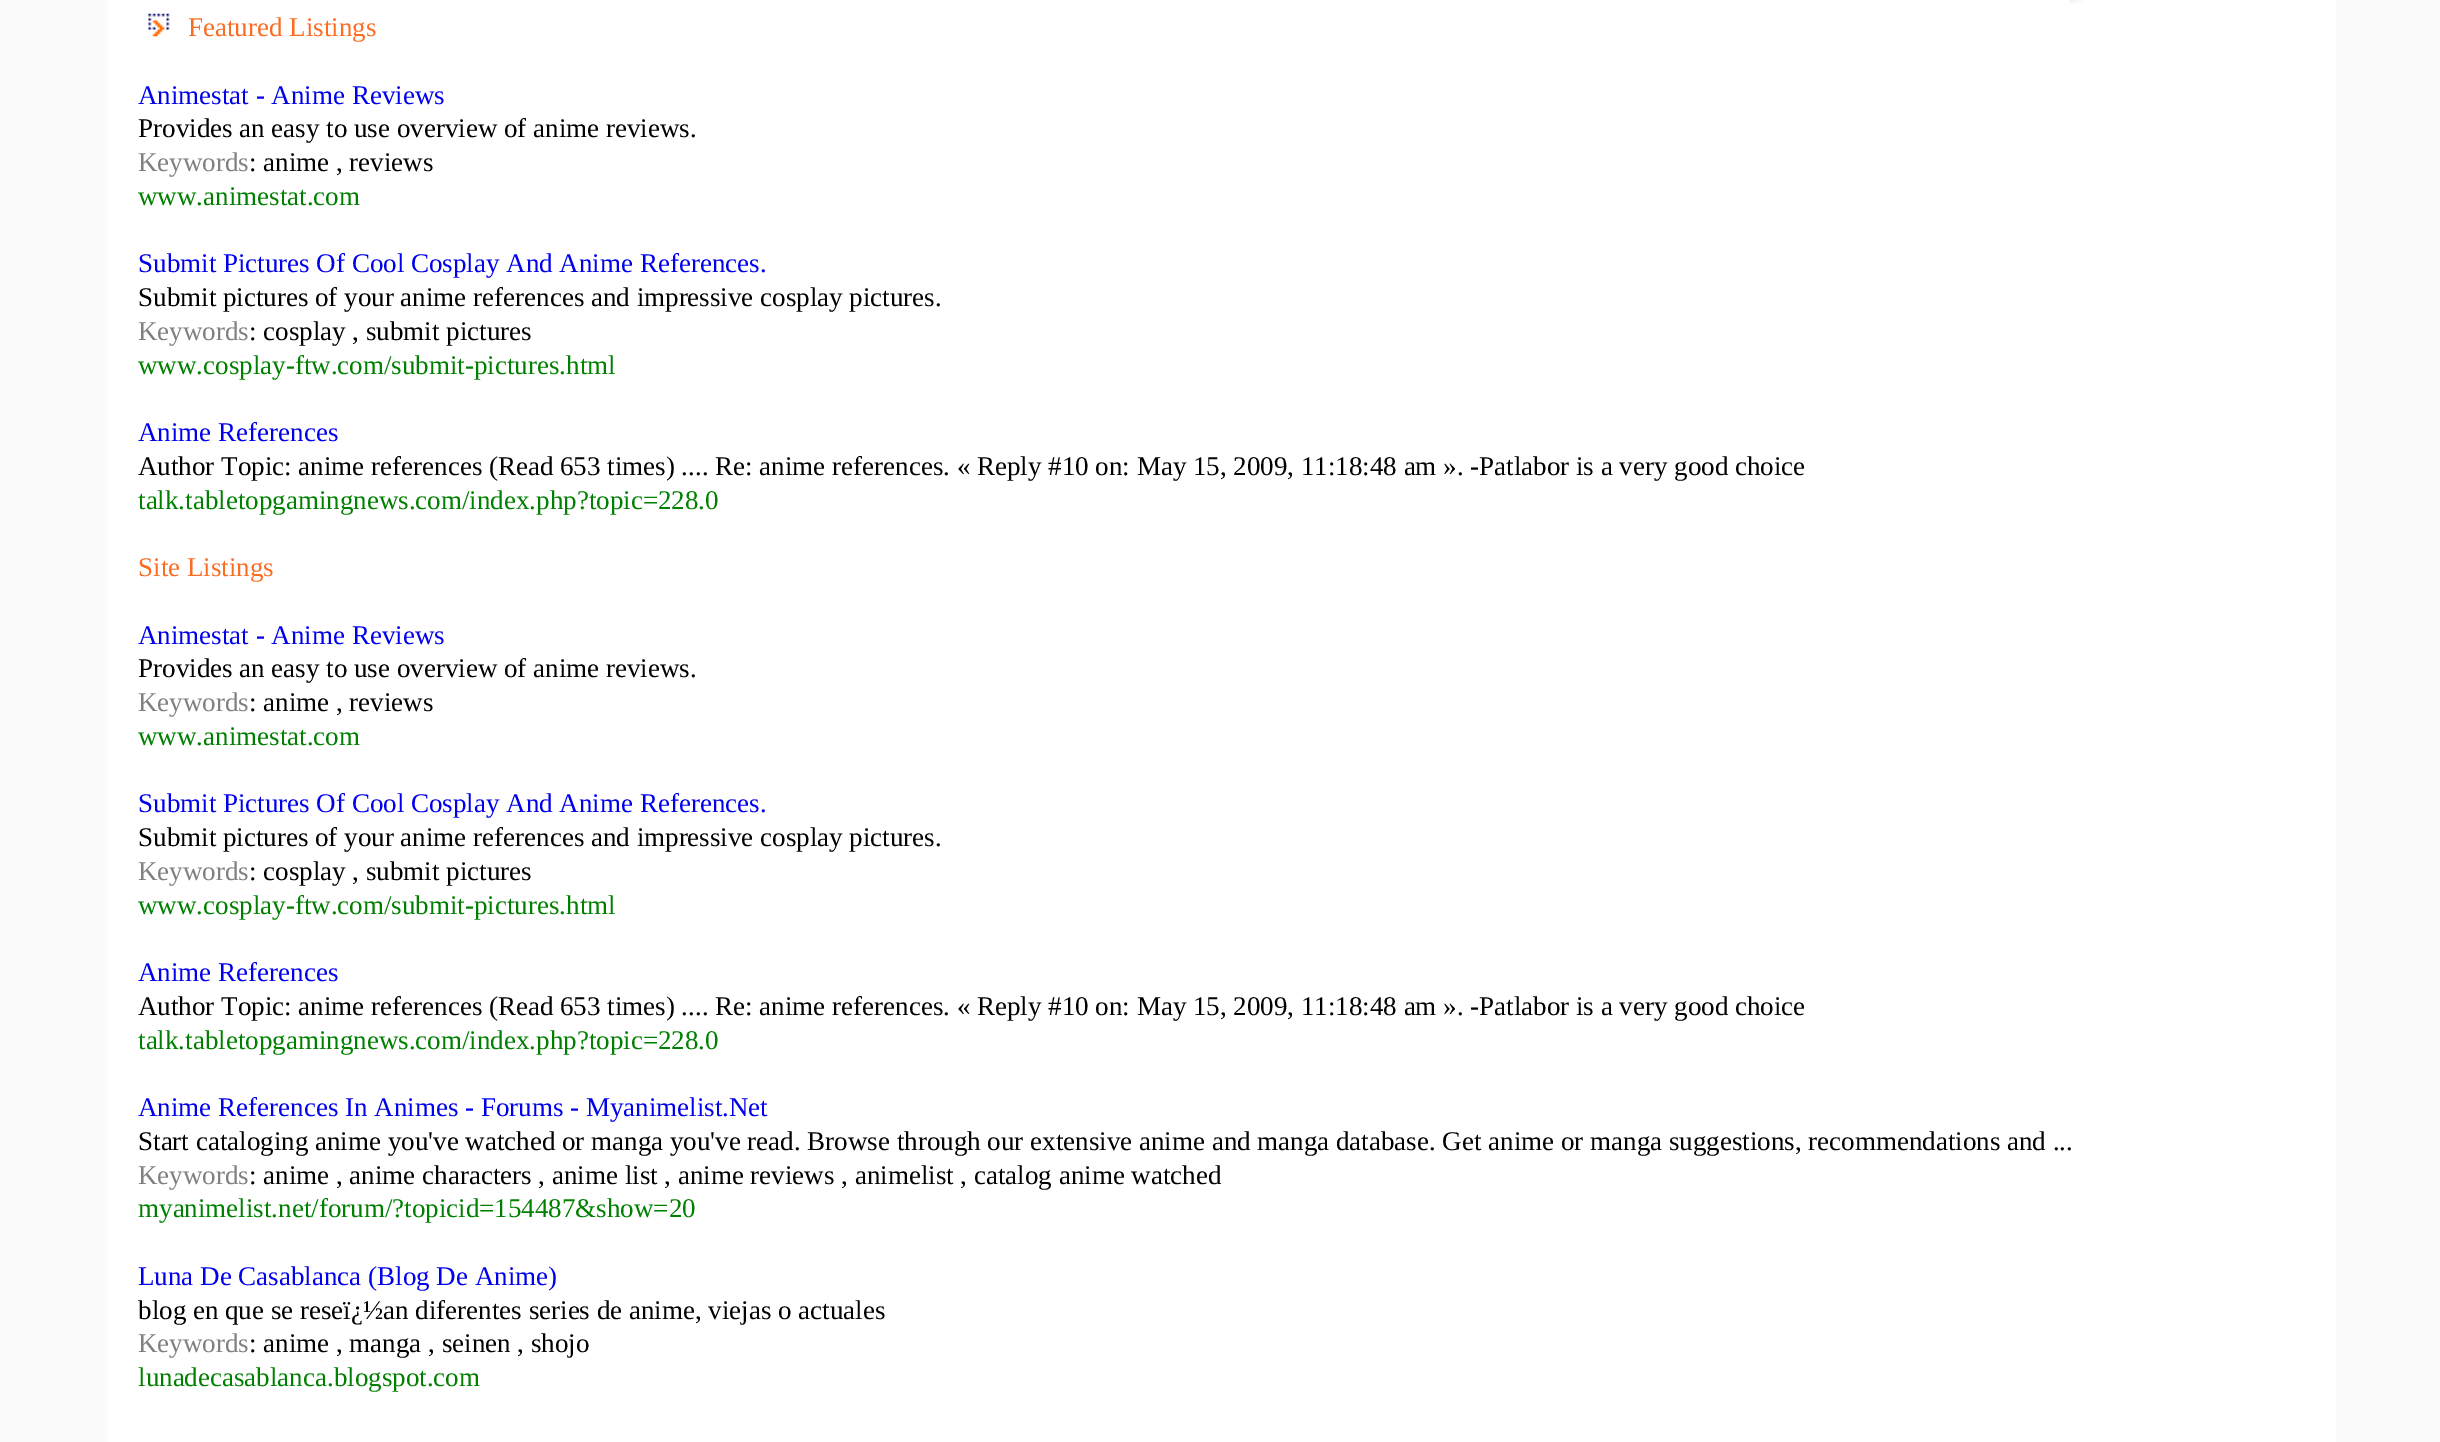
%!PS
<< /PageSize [2440 1442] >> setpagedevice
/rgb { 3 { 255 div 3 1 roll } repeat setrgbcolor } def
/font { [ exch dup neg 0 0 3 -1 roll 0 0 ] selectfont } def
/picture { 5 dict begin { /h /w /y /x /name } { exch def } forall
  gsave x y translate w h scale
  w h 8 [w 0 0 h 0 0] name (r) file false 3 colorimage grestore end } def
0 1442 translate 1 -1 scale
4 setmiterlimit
251 251 252 rgb
0 0 2440 1442 rectfill
255 255 255 rgb
108 0 2228 1442 rectfill
(img/1.rgb) 2069 0 15 3 picture
(img/2.rgb) 148 13 22 24 picture
/LiberationSerif-Regular 27 font
252 107 34 rgb
188 36 moveto (Featured Listings) show
0 0 238 rgb
138 104 moveto (Animestat - Anime Reviews) show
0 0 0 rgb
138 137 moveto (Provides an easy to use overview of anime reviews.) show
128 128 128 rgb
138 171 moveto (Keywords) show
0 0 0 rgb
249 171 moveto (: anime , reviews) show
0 128 0 rgb
138 205 moveto (www.animestat.com) show
0 0 238 rgb
138 272 moveto (Submit Pictures Of Cool Cosplay And Anime References.) show
0 0 0 rgb
138 306 moveto (Submit pictures of your anime references and impressive cosplay pictures.) show
128 128 128 rgb
138 340 moveto (Keywords) show
0 0 0 rgb
249 340 moveto (: cosplay , submit pictures) show
0 128 0 rgb
138 374 moveto (www.cosplay-ftw.com/submit-pictures.html) show
0 0 238 rgb
138 441 moveto (Anime References) show
0 0 0 rgb
138 475 moveto (Author Topic: anime references \(Read 653 times\) .... Re: anime references. « Reply #10 on: May 15, 2009, 11:18:48 am ». -Patlabor is a very good choice) show
0 128 0 rgb
138 509 moveto (talk.tabletopgamingnews.com/index.php?topic=228.0) show
252 107 34 rgb
138 576 moveto (Site Listings) show
0 0 238 rgb
138 644 moveto (Animestat - Anime Reviews) show
0 0 0 rgb
138 677 moveto (Provides an easy to use overview of anime reviews.) show
128 128 128 rgb
138 711 moveto (Keywords) show
0 0 0 rgb
249 711 moveto (: anime , reviews) show
0 128 0 rgb
138 745 moveto (www.animestat.com) show
0 0 238 rgb
138 812 moveto (Submit Pictures Of Cool Cosplay And Anime References.) show
0 0 0 rgb
138 846 moveto (Submit pictures of your anime references and impressive cosplay pictures.) show
128 128 128 rgb
138 880 moveto (Keywords) show
0 0 0 rgb
249 880 moveto (: cosplay , submit pictures) show
0 128 0 rgb
138 914 moveto (www.cosplay-ftw.com/submit-pictures.html) show
0 0 238 rgb
138 981 moveto (Anime References) show
0 0 0 rgb
138 1015 moveto (Author Topic: anime references \(Read 653 times\) .... Re: anime references. « Reply #10 on: May 15, 2009, 11:18:48 am ». -Patlabor is a very good choice) show
0 128 0 rgb
138 1049 moveto (talk.tabletopgamingnews.com/index.php?topic=228.0) show
0 0 238 rgb
138 1116 moveto (Anime References In Animes - Forums - Myanimelist.Net) show
0 0 0 rgb
138 1150 moveto (Start cataloging anime you've watched or manga you've read. Browse through our extensive anime and manga database. Get anime or manga suggestions, recommendations and ...) show
128 128 128 rgb
138 1184 moveto (Keywords) show
0 0 0 rgb
249 1184 moveto (: anime , anime characters , anime list , anime reviews , animelist , catalog anime watched) show
0 128 0 rgb
138 1217 moveto (myanimelist.net/forum/?topicid=154487&show=20) show
0 0 238 rgb
138 1285 moveto (Luna De Casablanca \(Blog De Anime\)) show
0 0 0 rgb
138 1319 moveto (blog en que se reseï¿½an diferentes series de anime, viejas o actuales) show
128 128 128 rgb
138 1352 moveto (Keywords) show
0 0 0 rgb
249 1352 moveto (: anime , manga , seinen , shojo) show
0 128 0 rgb
138 1386 moveto (lunadecasablanca.blogspot.com) show
showpage
